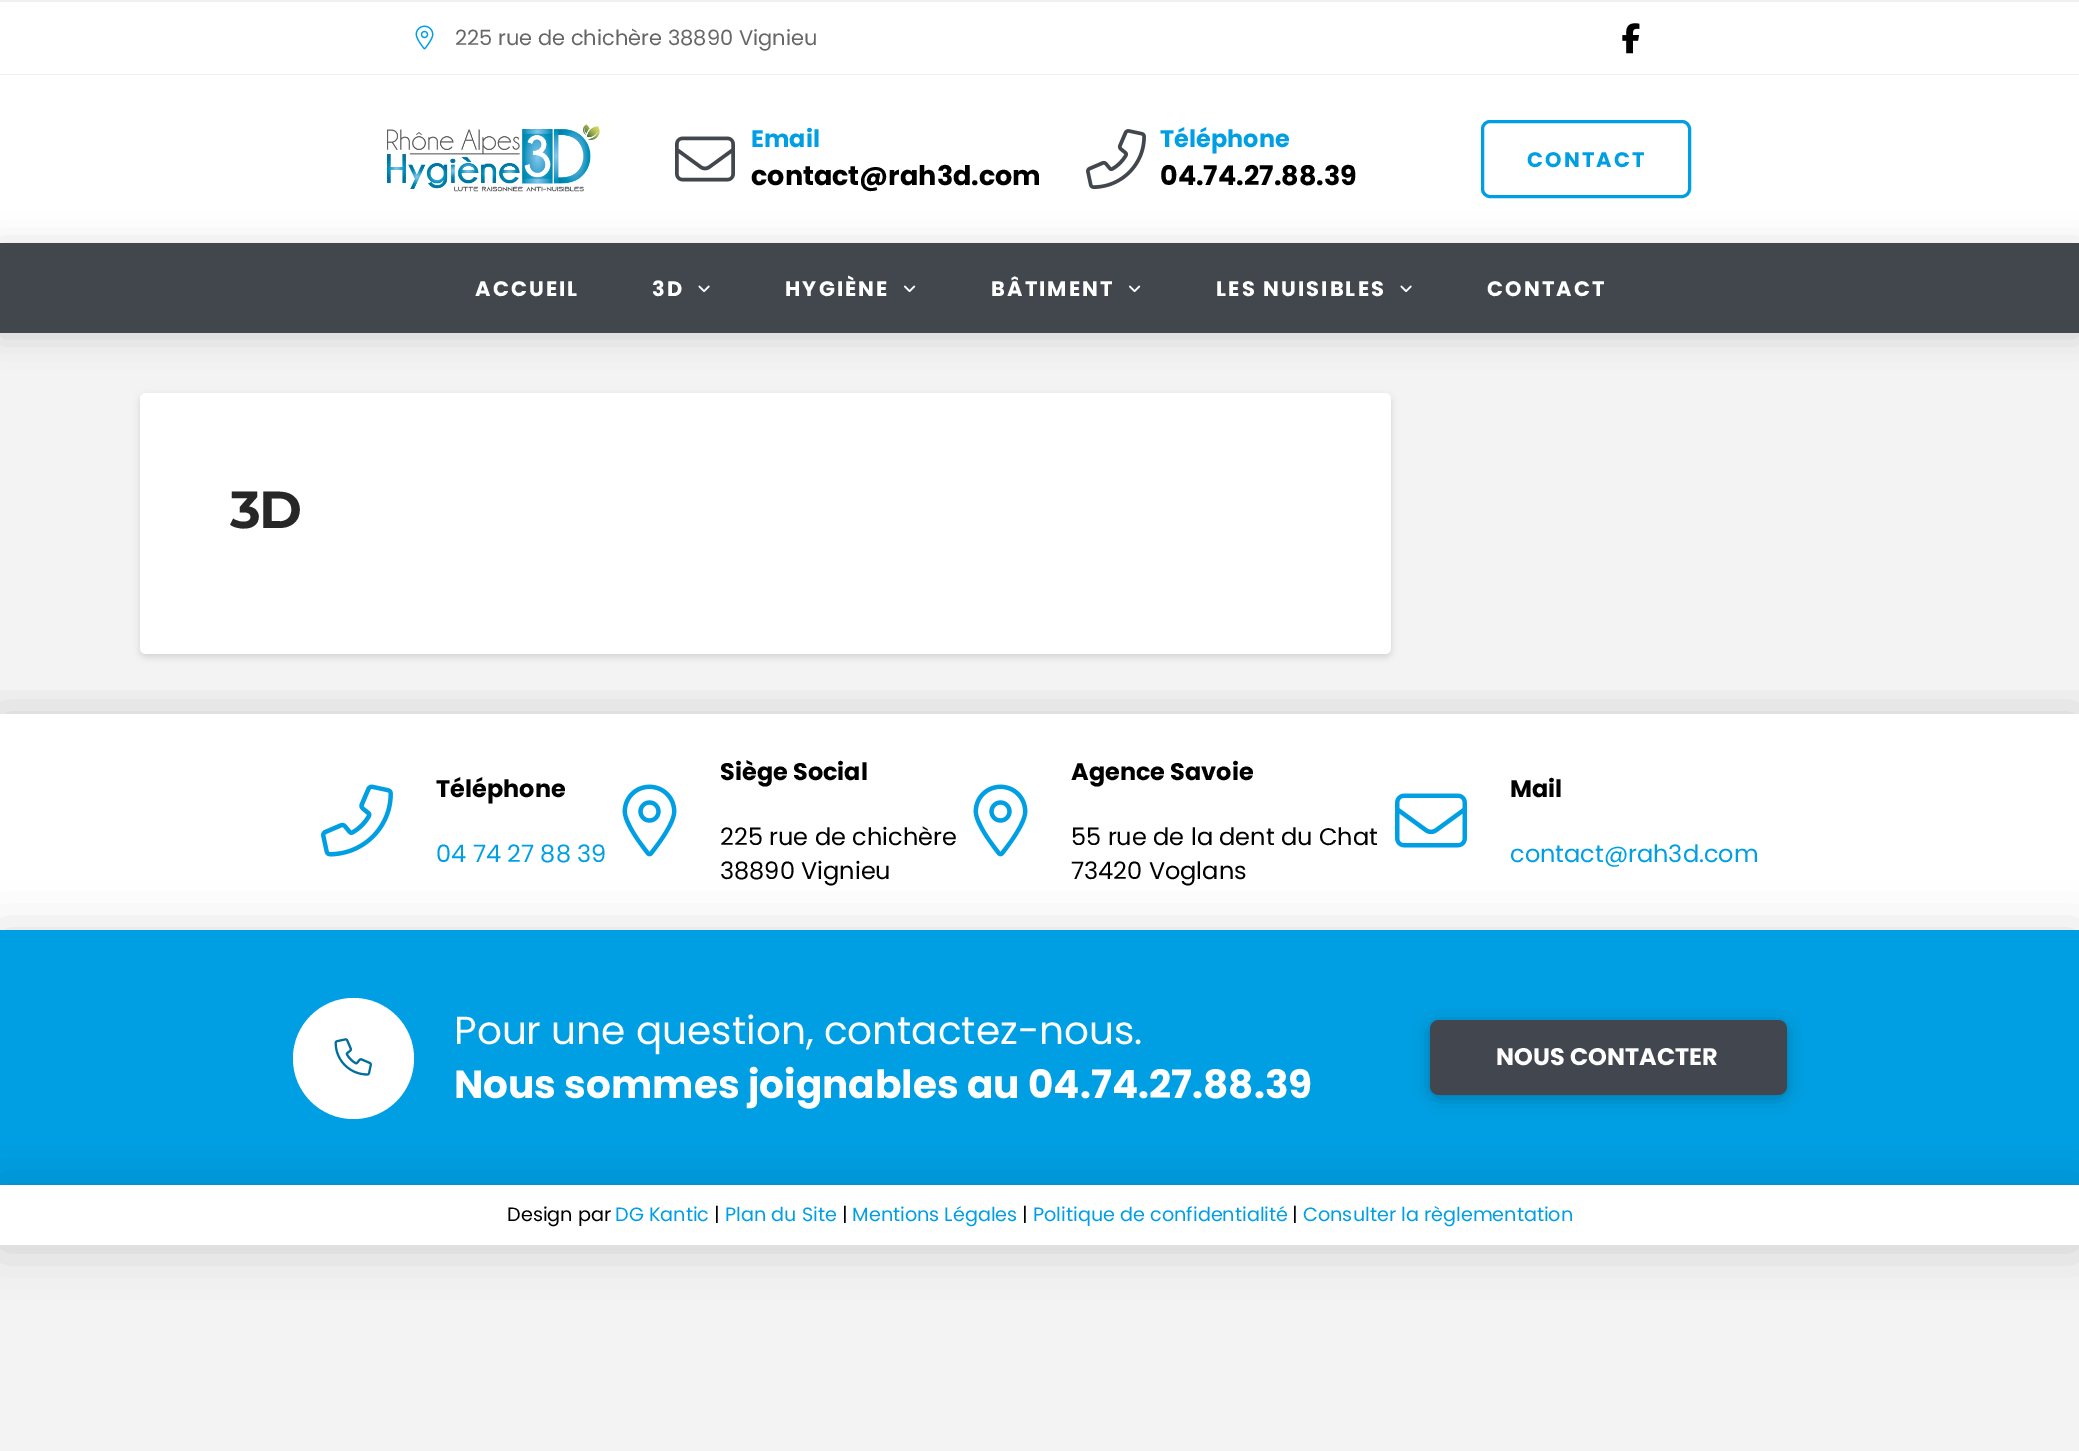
%!PS
<< /PageSize [2079 1451] /PageUsesTransparency true >> setpagedevice
/rgb { 3 { 255 div 3 1 roll } repeat setrgbcolor } def
/font { [ exch dup neg 0 0 3 -1 roll 0 0 ] selectfont } def
/alpha { dup .setfillconstantalpha .setstrokeconstantalpha } def
/circle { newpath 0 360 arc closepath } def
/roundrect { 5 dict begin { /r /h /w /y /x } { exch def } forall
  x r add y moveto x w add y 2 copy h add r arct x w add y h add x 1 index r arct
  x y h add x y r arct x y 2 copy exch w add exch r arct closepath end } def
/shadow { 12 dict begin { /a /b /q /h /w /y /x } { exch def } forall gsave /was 0 def
  9 -2 -9 { dup b mul 4 div /e exch def 1 sub .425 mul 2.718 exch exp 1 add a .99 .min exch div /now exch def
    1 1 now sub 1 was sub div sub alpha /was now def
    w h .min e 2 mul add 0 gt { x e sub y e sub w e 2 mul add h e 2 mul add
      q e add b .6 mul add w h .min 2 div e add .min 0 .max roundrect fill } if } for grestore end } def
/picture { 5 dict begin { /h /w /y /x /name } { exch def } forall
  gsave x y translate w h scale
  w h 8 [w 0 0 h 0 0] name (r) file false 3 colorimage grestore end } def
0 .pushpdf14devicefilter
0 1451 translate 1 -1 scale
4 setmiterlimit
243 243 243 rgb
0 0 2079 1451 rectfill
[
  [0 2 2079 72 255 255 255]
  [0 74 2079 1 240 240 240]
  [0 0 2079 2 240 240 240]
] { aload pop rgb rectfill } forall
(img/1.rgb) 415 25 19 25 picture
(img/2.rgb) 1622 23 18 31 picture
255 255 255 rgb
0 75 2079 168 rectfill
(img/3.rgb) 387 124 213 68 picture
(img/4.rgb) 675 136 60 46 picture
(img/5.rgb) 1086 129 60 60 picture
0 159 227 rgb
3 setlinewidth
1482.5 121.5 207 75 7.5 roundrect stroke
0 0 0 rgb
0 246 2079 90 0 15 0.15 shadow
66 71 77 rgb
0 243 2079 90 rectfill
(img/6.rgb) 698 285 12 8 picture
(img/7.rgb) 904 285 12 8 picture
(img/7.rgb) 1129 285 12 8 picture
(img/6.rgb) 1400 285 12 8 picture
0 0 0 rgb
140 396 1251 261 6 3.5 0.13 shadow
255 255 255 rgb
140 393 1251 261 6 roundrect fill
0 714 2079 216 rectfill
gsave
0 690 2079 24 rectclip
0 0 0 rgb
0 717 2079 216 0 24 0.15 shadow
grestore
(img/8.rgb) 321 784 72 73 picture
(img/9.rgb) 622 784 55 73 picture
(img/9.rgb) 973 784 55 73 picture
(img/10.rgb) 1395 793 72 55 picture
0 0 0 rgb
0 933 2079 255 0 24 0.15 shadow
0 159 227 rgb
0 930 2079 255 rectfill
255 255 255 rgb
353.5 1058.5 60.5 circle fill
(img/11.rgb) 334 1038 38 38 picture
0 0 0 rgb
1430 1023 357 75 9 8 0.25 shadow
66 70 78 rgb
1430 1020 357 75 9 roundrect fill
0 0 0 rgb
0 1188 2079 60 0 24 0.15 shadow
255 255 255 rgb
0 1185 2079 60 rectfill
/Poppins-Regular 21 font
102 102 102 rgb
455 45 moveto (225 rue de chichère 38890 Vignieu) show
/Poppins-Bold 24 font
0 159 227 rgb
751 147 moveto (Email) show
/Poppins-Bold 27 font
0 0 0 rgb
751 185 moveto (contact@rah3d.com) show
/Poppins-Bold 24 font
0 159 227 rgb
1160 147 moveto (Téléphone) show
/Poppins-Bold 27 font
0 0 0 rgb
1160 185 moveto (04.74.27.88.39) show
/Poppins-Bold 21 font
0 159 227 rgb
1527 167 moveto 2.1 0 (CONTACT) ashow
255 255 255 rgb
475 296 moveto 2.1 0 (ACCUEIL) ashow
652 296 moveto 2.1 0 (3D) ashow
785 296 moveto 2.1 0 (HYGIÈNE) ashow
991 296 moveto 2.1 0 (BÂTIMENT) ashow
1216 296 moveto 2.1 0 (LES NUISIBLES) ashow
1487 296 moveto 2.1 0 (CONTACT) ashow
/Montserrat-Thin 52 font
39 39 39 rgb
230 528 moveto -2 0 (3D) ashow
/Poppins-Bold 24 font
0 0 0 rgb
436 797 moveto (Téléphone) show
/Poppins-Regular 24 font
0 159 227 rgb
436 862 moveto (04 74 27 88 39) show
/Poppins-Bold 24 font
0 0 0 rgb
720 780 moveto (Siège Social) show
/Poppins-Regular 24 font
720 845 moveto (225 rue de chichère) show
720 879 moveto (38890 Vignieu) show
/Poppins-Bold 24 font
1071 780 moveto (Agence Savoie) show
/Poppins-Regular 24 font
1071 845 moveto (55 rue de la dent du Chat) show
1071 879 moveto (73420 Voglans) show
/Poppins-Bold 24 font
1510 797 moveto (Mail) show
/Poppins-Regular 24 font
0 159 227 rgb
1510 862 moveto (contact@rah3d.com) show
/Poppins-Regular 39 font
255 255 255 rgb
454 1044 moveto (Pour une question, contactez-nous.) show
/Poppins-Bold 39 font
454 1098 moveto (Nous sommes joignables au 04.74.27.88.39) show
/Poppins-Bold 24 font
1496 1065 moveto (NOUS CONTACTER) show
/Poppins-Regular 19.25 font
0 0 0 rgb
507 1221 moveto (Design par) show
0 159 227 rgb
615 1221 moveto (DG Kantic) show
0 0 0 rgb
714 1221 moveto (|) show
0 159 227 rgb
725 1221 moveto (Plan du Site) show
0 0 0 rgb
842 1221 moveto (|) show
0 159 227 rgb
852 1221 moveto (Mentions Légales) show
0 0 0 rgb
1022 1221 moveto (|) show
0 159 227 rgb
1033 1221 moveto (Politique de confidentialité) show
0 0 0 rgb
1292 1221 moveto (|) show
0 159 227 rgb
1303 1221 moveto (Consulter la règlementation) show
.poppdf14devicefilter showpage
